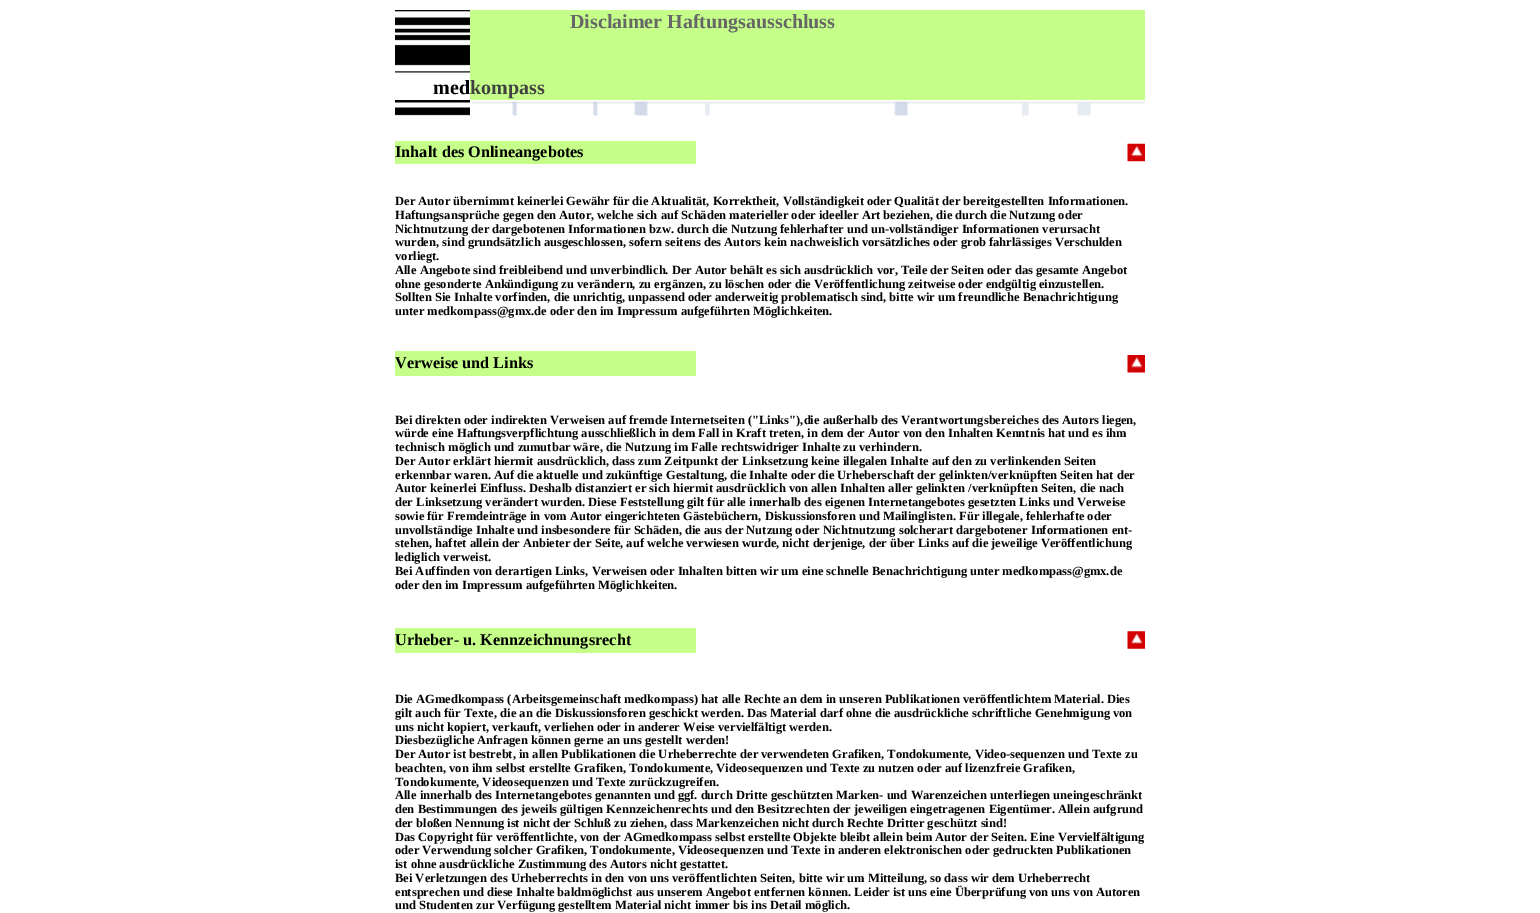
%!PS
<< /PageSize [1540 913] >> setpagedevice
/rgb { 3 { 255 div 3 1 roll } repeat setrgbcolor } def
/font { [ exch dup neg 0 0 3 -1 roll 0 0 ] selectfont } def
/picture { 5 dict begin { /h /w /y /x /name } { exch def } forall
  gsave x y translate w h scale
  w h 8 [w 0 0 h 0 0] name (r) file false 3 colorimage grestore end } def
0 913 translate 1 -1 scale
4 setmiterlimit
255 255 255 rgb
0 0 1540 913 rectfill
(img/1.rgb) 395 10 75 65 picture
197 255 138 rgb
470 10 675 66 rectfill
470 76 675 24 rectfill
(img/2.rgb) 395 100 75 16 picture
(img/3.rgb) 471 101 674 15 picture
395 141 301 23 rectfill
(img/4.rgb) 1127 143 18 19 picture
395 351 301 25 rectfill
(img/5.rgb) 1127 355 18 18 picture
395 628 301 25 rectfill
(img/6.rgb) 1127 631 18 18 picture
/LiberationSerif-Bold 20 font
102 102 102 rgb
570 28 moveto (Disclaimer Haftungsausschluss) show
0 0 0 rgb
433 94 moveto (med) show
65 65 65 rgb
470 94 moveto (kompass) show
/LiberationSerif-Bold 16.25 font
0 0 0 rgb
395 157 moveto (Inhalt des Onlineangebotes) show
/LiberationSerif-Bold 12.5 font
[
  [(Der Autor übernimmt keinerlei Gewähr für die Aktualität, Korrektheit, Vollständigkeit oder Qualität der bereitgestellten Informationen.) 395 205]
  [(Haftungsansprüche gegen den Autor, welche sich auf Schäden materieller oder ideeller Art beziehen, die durch die Nutzung oder) 395 219]
  [(Nichtnutzung der dargebotenen Informationen bzw. durch die Nutzung fehlerhafter und un-vollständiger Informationen verursacht) 395 233]
  [(wurden, sind grundsätzlich ausgeschlossen, sofern seitens des Autors kein nachweislich vorsätzliches oder grob fahrlässiges Verschulden) 395 246]
  [(vorliegt.) 395 260]
  [(Alle Angebote sind freibleibend und unverbindlich. Der Autor behält es sich ausdrücklich vor, Teile der Seiten oder das gesamte Angebot) 395 274]
  [(ohne gesonderte Ankündigung zu verändern, zu ergänzen, zu löschen oder die Veröffentlichung zeitweise oder endgültig einzustellen.) 395 288]
  [(Sollten Sie Inhalte vorfinden, die unrichtig, unpassend oder anderweitig problematisch sind, bitte wir um freundliche Benachrichtigung) 395 301]
  [(unter medkompass@gmx.de oder den im Impressum aufgeführten Möglichkeiten.) 395 315]
] { aload pop moveto show } forall
/LiberationSerif-Bold 16.25 font
395 368 moveto (Verweise und Links) show
/LiberationSerif-Bold 12.5 font
[
  [(Bei direkten oder indirekten Verweisen auf fremde Internetseiten \("Links"\),die außerhalb des Verantwortungsbereiches des Autors liegen,) 395 424]
  [(würde eine Haftungsverpflichtung ausschließlich in dem Fall in Kraft treten, in dem der Autor von den Inhalten Kenntnis hat und es ihm) 395 437]
  [(technisch möglich und zumutbar wäre, die Nutzung im Falle rechtswidriger Inhalte zu verhindern.) 395 451]
  [(Der Autor erklärt hiermit ausdrücklich, dass zum Zeitpunkt der Linksetzung keine illegalen Inhalte auf den zu verlinkenden Seiten) 395 465]
  [(erkennbar waren. Auf die aktuelle und zukünftige Gestaltung, die Inhalte oder die Urheberschaft der gelinkten/verknüpften Seiten hat der) 395 479]
  [(Autor keinerlei Einfluss. Deshalb distanziert er sich hiermit ausdrücklich von allen Inhalten aller gelinkten /verknüpften Seiten, die nach) 395 492]
  [(der Linksetzung verändert wurden. Diese Feststellung gilt für alle innerhalb des eigenen Internetangebotes gesetzten Links und Verweise) 395 506]
  [(sowie für Fremdeinträge in vom Autor eingerichteten Gästebüchern, Diskussionsforen und Mailinglisten. Für illegale, fehlerhafte oder) 395 520]
  [(unvollständige Inhalte und insbesondere für Schäden, die aus der Nutzung oder Nichtnutzung solcherart dargebotener Informationen ent-) 395 534]
  [(stehen, haftet allein der Anbieter der Seite, auf welche verwiesen wurde, nicht derjenige, der über Links auf die jeweilige Veröffentlichung) 395 547]
  [(lediglich verweist.) 395 561]
  [(Bei Auffinden von derartigen Links, Verweisen oder Inhalten bitten wir um eine schnelle Benachrichtigung unter medkompass@gmx.de) 395 575]
  [(oder den im Impressum aufgeführten Möglichkeiten.) 395 589]
] { aload pop moveto show } forall
/LiberationSerif-Bold 16.25 font
395 645 moveto (Urheber- u. Kennzeichnungsrecht) show
/LiberationSerif-Bold 12.5 font
[
  [(Die AGmedkompass \(Arbeitsgemeinschaft medkompass\) hat alle Rechte an dem in unseren Publikationen veröffentlichtem Material. Dies) 395 703]
  [(gilt auch für Texte, die an die Diskussionsforen geschickt werden. Das Material darf ohne die ausdrückliche schriftliche Genehmigung von) 395 717]
  [(uns nicht kopiert, verkauft, verliehen oder in anderer Weise vervielfältigt werden.) 395 731]
  [(Diesbezügliche Anfragen können gerne an uns gestellt werden!) 395 744]
  [(Der Autor ist bestrebt, in allen Publikationen die Urheberrechte der verwendeten Grafiken, Tondokumente, Video-sequenzen und Texte zu) 395 758]
  [(beachten, von ihm selbst erstellte Grafiken, Tondokumente, Videosequenzen und Texte zu nutzen oder auf lizenzfreie Grafiken,) 395 772]
  [(Tondokumente, Videosequenzen und Texte zurückzugreifen.) 395 786]
  [(Alle innerhalb des Internetangebotes genannten und ggf. durch Dritte geschützten Marken- und Warenzeichen unterliegen uneingeschränkt) 395 799]
  [(den Bestimmungen des jeweils gültigen Kennzeichenrechts und den Besitzrechten der jeweiligen eingetragenen Eigentümer. Allein aufgrund) 395 813]
  [(der bloßen Nennung ist nicht der Schluß zu ziehen, dass Markenzeichen nicht durch Rechte Dritter geschützt sind!) 395 827]
  [(Das Copyright für veröffentlichte, von der AGmedkompass selbst erstellte Objekte bleibt allein beim Autor der Seiten. Eine Vervielfältigung) 395 841]
  [(oder Verwendung solcher Grafiken, Tondokumente, Videosequenzen und Texte in anderen elektronischen oder gedruckten Publikationen) 395 854]
  [(ist ohne ausdrückliche Zustimmung des Autors nicht gestattet.) 395 868]
  [(Bei Verletzungen des Urheberrechts in den von uns veröffentlichten Seiten, bitte wir um Mitteilung, so dass wir dem Urheberrecht) 395 882]
  [(entsprechen und diese Inhalte baldmöglichst aus unserem Angebot entfernen können. Leider ist uns eine Überprüfung von uns von Autoren) 395 896]
  [(und Studenten zur Verfügung gestelltem Material nicht immer bis ins Detail möglich.) 395 909]
] { aload pop moveto show } forall
showpage
